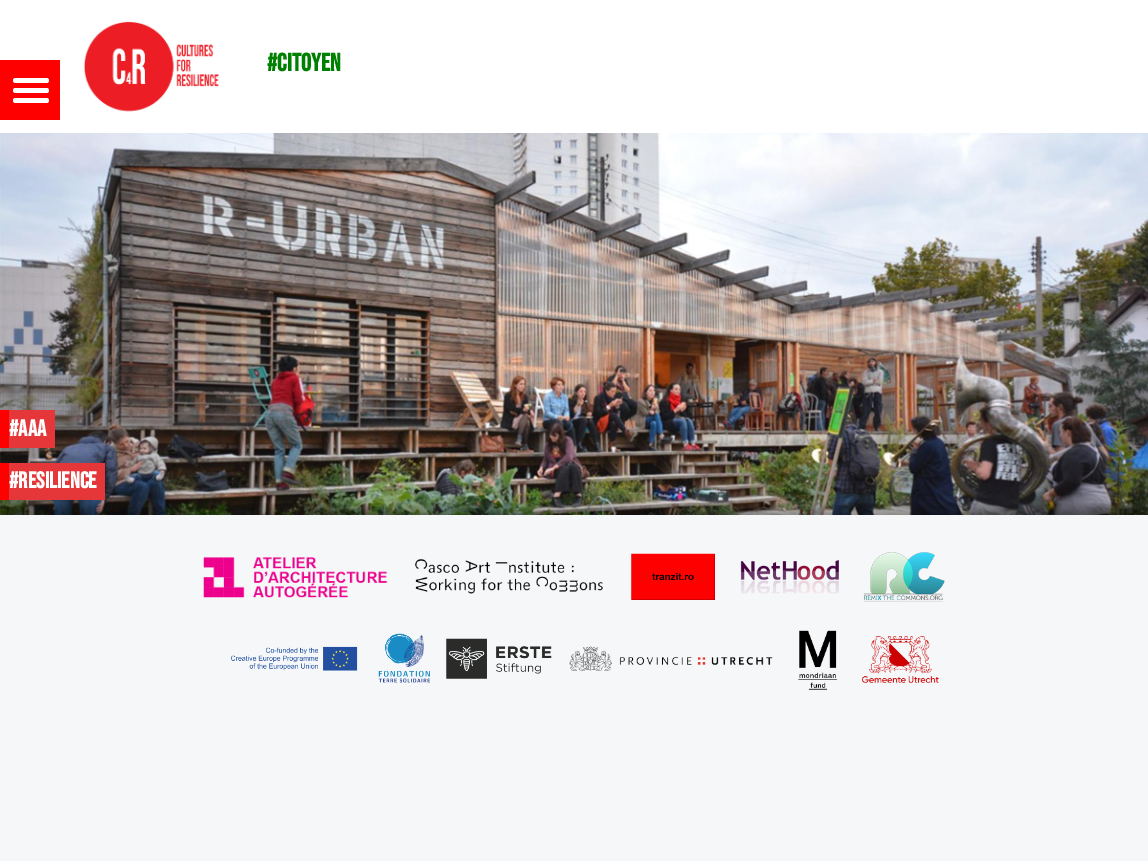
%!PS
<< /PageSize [1148 861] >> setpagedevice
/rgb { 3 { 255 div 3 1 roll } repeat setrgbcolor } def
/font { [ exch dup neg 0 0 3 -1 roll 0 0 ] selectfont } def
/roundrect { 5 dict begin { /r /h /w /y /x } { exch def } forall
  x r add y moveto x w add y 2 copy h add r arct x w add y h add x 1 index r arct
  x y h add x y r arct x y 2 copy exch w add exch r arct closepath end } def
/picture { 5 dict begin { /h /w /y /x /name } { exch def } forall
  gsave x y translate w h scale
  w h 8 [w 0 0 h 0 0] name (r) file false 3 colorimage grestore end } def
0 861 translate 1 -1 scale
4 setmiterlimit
245 247 249 rgb
0 0 1148 861 rectfill
255 255 255 rgb
0 0 1148 133 rectfill
255 0 0 rgb
0 60 60 60 rectfill
255 255 255 rgb
13 78 36 5 2.5 roundrect fill
13 88 36 5 2.5 roundrect fill
13 98 36 5 2.5 roundrect fill
(img/1.rgb) 83 21 136 91 picture
(img/2.rgb) 0 133 1148 382 picture
255 0 0 rgb
0 410 moveto 0 448 lineto 38 448 lineto 38 447.5 lineto 9 447.5 lineto 9 410 lineto closepath fill
229 55 57 rgb
18 447.5 moveto 18 448 lineto 55 448 lineto 55 410 lineto 46 410 lineto 46 447.5 lineto closepath fill
[
  [9 410 37 38 229 55 57]
  [0 463 9 37 255 0 0]
  [9 463 96 37 229 55 57]
] { aload pop rgb rectfill } forall
(img/3.rgb) 203 557 185 41 picture
(img/4.rgb) 415 559 188 35 picture
(img/5.rgb) 631 553 84 47 picture
(img/6.rgb) 740 560 99 34 picture
(img/7.rgb) 863 552 82 50 picture
(img/8.rgb) 231 646 127 25 picture
(img/9.rgb) 378 633 52 50 picture
(img/10.rgb) 446 638 106 41 picture
(img/11.rgb) 569 646 204 25 picture
(img/12.rgb) 798 630 40 60 picture
(img/13.rgb) 862 635 77 48 picture
/BebasNeue-Bold 25 font
0 128 0 rgb
267 71 moveto (#citoyen) show
/BebasNeue-Bold 23 font
255 255 255 rgb
9 436 moveto (#AAA) show
9 488 moveto (#resilience) show
showpage
